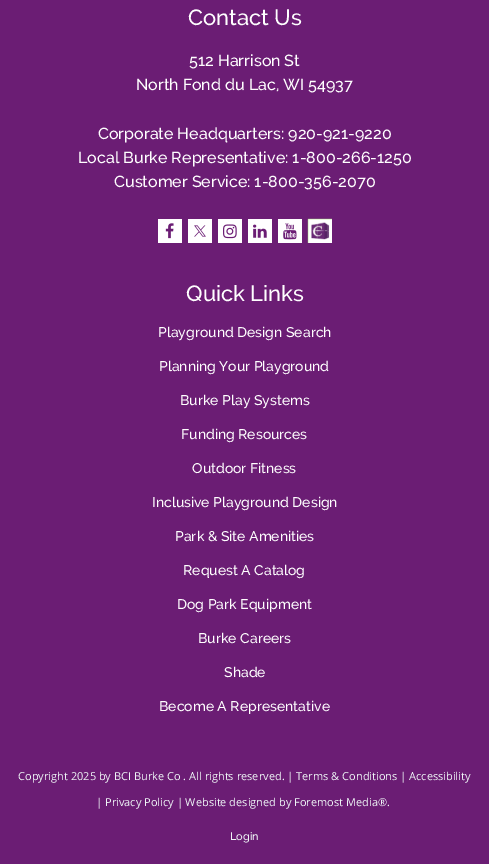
%!PS
<< /PageSize [489 864] >> setpagedevice
/rgb { 3 { 255 div 3 1 roll } repeat setrgbcolor } def
/font { [ exch dup neg 0 0 3 -1 roll 0 0 ] selectfont } def
/picture { 5 dict begin { /h /w /y /x /name } { exch def } forall
  gsave x y translate w h scale
  w h 8 [w 0 0 h 0 0] name (r) file false 3 colorimage grestore end } def
0 864 translate 1 -1 scale
4 setmiterlimit
107 29 116 rgb
0 0 489 864 rectfill
255 255 255 rgb
158 219 24 24 rectfill
(img/1.rgb) 165 223 9 16 picture
188 219 24 24 rectfill
(img/2.rgb) 194 225 12 12 picture
218 219 24 24 rectfill
(img/3.rgb) 223 224 14 15 picture
248 219 24 24 rectfill
(img/4.rgb) 253 224 14 14 picture
278 219 24 24 rectfill
(img/5.rgb) 283 223 14 17 picture
(img/6.rgb) 307 218 25 25 picture
(img/7.rgb) 307 218 25 25 picture
/Raleway-Medium 22 font
188 25 moveto (Contact Us) show
/Raleway-Medium 16 font
[
  [(512 Harrison St) 189 66]
  [(North Fond du Lac, WI 54937) 136 90]
  [(Corporate Headquarters: 920-921-9220) 98 139]
  [(Local Burke Representative: 1-800-266-1250) 78 163]
  [(Customer Service: 1-800-356-2070) 114 187]
] { aload pop moveto show } forall
/Raleway-Medium 22 font
186 301 moveto (Quick Links) show
/Raleway-Medium 14 font
[
  [(Playground Design Search) 158 337]
  [(Planning Your Playground) 159 371]
  [(Burke Play Systems) 180 405]
  [(Funding Resources) 181 439]
  [(Outdoor Fitness) 192 473]
  [(Inclusive Playground Design) 152 507]
  [(Park & Site Amenities) 175 541]
  [(Request A Catalog) 183 575]
  [(Dog Park Equipment) 177 609]
  [(Burke Careers) 198 643]
  [(Shade) 224 677]
  [(Become A Representative) 159 711]
] { aload pop moveto show } forall
/OpenSans-Regular 11 font
238 244 246 rgb
18 780 moveto (Copyright 2025 by BCI Burke Co . All rights reserved. | Terms & Conditions | Accessibility) show
96 806 moveto (| Privacy Policy | Website designed by Foremost Media®.) show
/Raleway-Medium 11 font
230 840 moveto (Login) show
showpage
